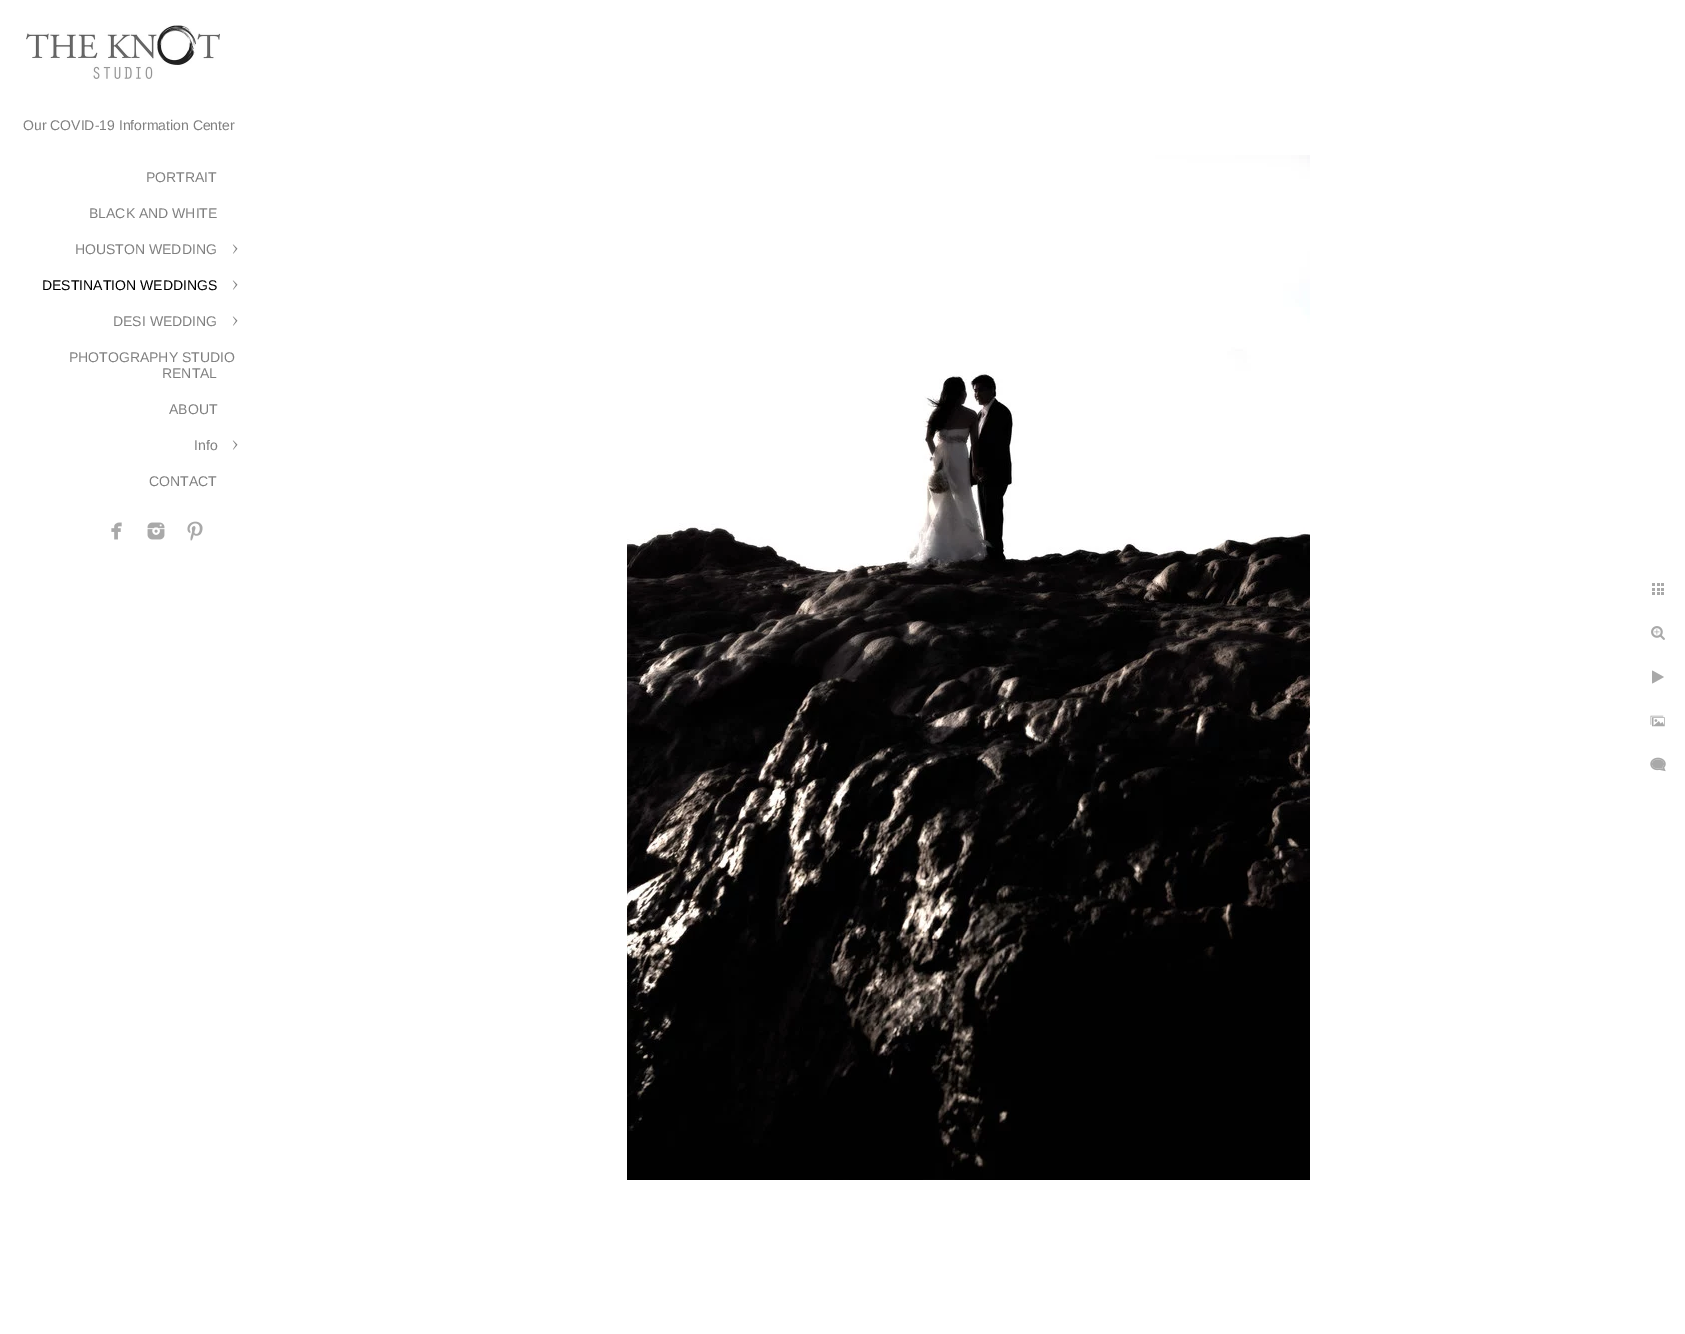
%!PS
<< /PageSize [1685 1334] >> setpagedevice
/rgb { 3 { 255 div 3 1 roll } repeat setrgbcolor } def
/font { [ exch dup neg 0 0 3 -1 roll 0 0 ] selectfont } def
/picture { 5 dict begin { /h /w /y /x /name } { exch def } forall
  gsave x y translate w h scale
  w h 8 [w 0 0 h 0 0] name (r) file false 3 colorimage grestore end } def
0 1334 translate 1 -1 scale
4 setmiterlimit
255 255 255 rgb
0 0 1685 1334 rectfill
(img/1.rgb) 26 25 194 54 picture
(img/2.rgb) 232 244 6 10 picture
(img/2.rgb) 232 280 6 10 picture
(img/2.rgb) 232 316 6 10 picture
(img/2.rgb) 232 440 6 10 picture
(img/3.rgb) 111 522 11 18 picture
(img/4.rgb) 147 522 18 18 picture
(img/5.rgb) 187 521 16 20 picture
(img/6.rgb) 627 155 683 1025 picture
(img/7.rgb) 1652 583 12 12 picture
(img/8.rgb) 1651 626 14 14 picture
(img/9.rgb) 1652 670 12 14 picture
(img/10.rgb) 1650 715 15 12 picture
(img/11.rgb) 1650 757 16 15 picture
/LiberationSans-Regular 14 font
128 128 128 rgb
[
  [(Our COVID-19 Information Center) 23 130]
  [(PORTRAIT) 146 182]
  [(BLACK AND WHITE) 89 218]
  [(HOUSTON WEDDING) 75 254]
] { aload pop moveto show } forall
0 0 0 rgb
42 290 moveto (DESTINATION WEDDINGS) show
128 128 128 rgb
[
  [(DESI WEDDING) 113 326]
  [(PHOTOGRAPHY STUDIO) 69 362]
  [(RENTAL) 162 378]
  [(ABOUT) 169 414]
  [(Info) 194 450]
  [(CONTACT) 149 486]
] { aload pop moveto show } forall
showpage
